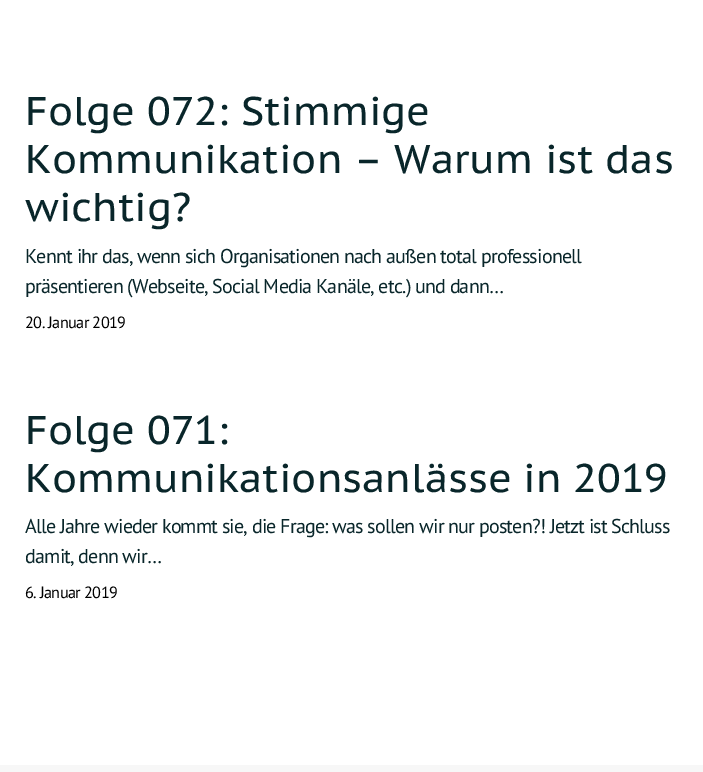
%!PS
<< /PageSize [703 772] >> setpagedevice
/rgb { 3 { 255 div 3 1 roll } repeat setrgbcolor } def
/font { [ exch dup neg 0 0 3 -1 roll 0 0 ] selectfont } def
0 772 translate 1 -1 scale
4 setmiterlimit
255 255 255 rgb
0 0 703 772 rectfill
247 247 247 rgb
0 765 703 7 rectfill
/PTSansCaption-Regular 40 font
9 38 42 rgb
[
  [(Folge 072: Stimmige) 25 125]
  [(Kommunikation – Warum ist das) 25 173]
  [(wichtig?) 25 221]
] { aload pop moveto show } forall
/PTSans-Regular 20 font
25 263 moveto -0.8 0 (Kennt ihr das, wenn sich Organisationen nach außen total professionell) ashow
25 293 moveto -0.8 0 (präsentieren \(Webseite, Social Media Kanäle, etc.\) und dann…) ashow
/PTSans-Regular 16.25 font
0 0 0 rgb
25 328 moveto -0.6 0 (20. Januar 2019) ashow
/PTSansCaption-Regular 40 font
9 38 42 rgb
25 444 moveto (Folge 071:) show
25 492 moveto (Kommunikationsanlässe in 2019) show
/PTSans-Regular 20 font
25 533 moveto -0.8 0 (Alle Jahre wieder kommt sie, die Frage: was sollen wir nur posten?! Jetzt ist Schluss) ashow
25 563 moveto -0.8 0 (damit, denn wir…) ashow
/PTSans-Regular 16.25 font
0 0 0 rgb
25 598 moveto -0.6 0 (6. Januar 2019) ashow
showpage
